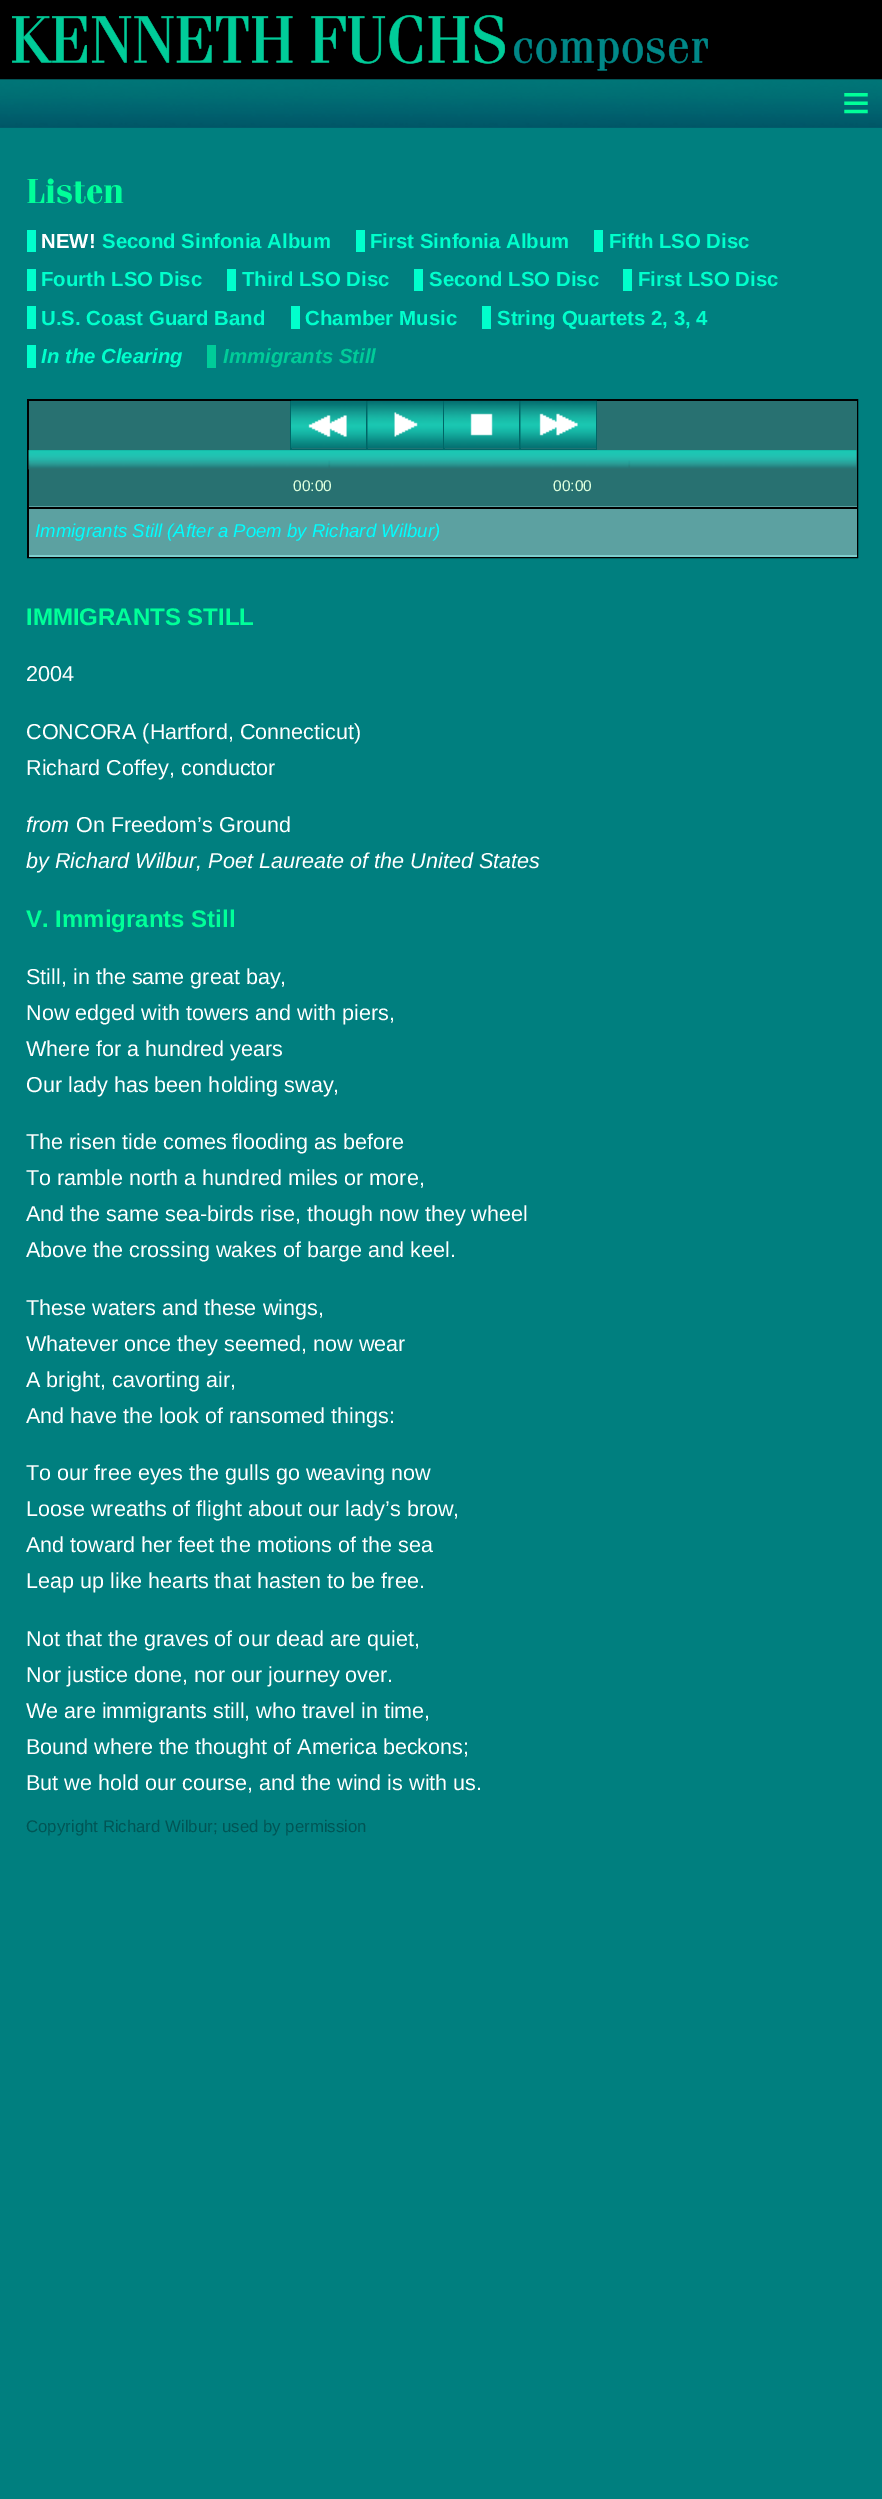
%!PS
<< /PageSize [882 2499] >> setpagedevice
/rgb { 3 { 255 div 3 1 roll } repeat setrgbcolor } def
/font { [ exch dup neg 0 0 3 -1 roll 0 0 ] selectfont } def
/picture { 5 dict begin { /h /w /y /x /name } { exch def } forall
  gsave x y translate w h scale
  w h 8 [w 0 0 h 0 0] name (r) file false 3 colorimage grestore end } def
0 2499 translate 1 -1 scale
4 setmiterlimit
0 127 127 rgb
0 0 882 2499 rectfill
0 0 0 rgb
0 0 882 80 rectfill
(img/1.rgb) 12 15 696 56 picture
(img/2.rgb) 0 79 882 1 picture
0 97 110 rgb
0 127 882 1 rectfill
(img/3.rgb) 0 79 882 49 picture
[
  [27 230 9 22 0 255 204]
  [356 230 9 22 0 255 204]
  [594 230 9 22 0 255 204]
  [27 269 9 22 0 255 204]
  [227 269 9 22 0 255 204]
  [414 269 9 22 0 255 204]
  [623 269 9 22 0 255 204]
  [27 306 9 23 0 255 204]
  [291 306 9 23 0 255 204]
  [482 306 9 23 0 255 204]
  [27 345 9 23 0 255 204]
  [207 345 9 23 0 204 153]
] { aload pop rgb rectfill } forall
0 0 0 rgb
2 setlinewidth
28 400 829 157 rectstroke
[
  [29 401 828 105 40 113 113]
  [290 449 307 1 0 102 102]
  [290 401 2 49 0 102 102]
] { aload pop rgb rectfill } forall
(img/4.rgb) 291 400 77 49 picture
366 401 2 48 rectfill
(img/5.rgb) 367 400 77 49 picture
443 401 2 48 rectfill
(img/6.rgb) 444 400 77 49 picture
519 401 2 48 rectfill
(img/7.rgb) 520 400 77 49 picture
596 401 1 48 rectfill
(img/8.rgb) 28 450 829 20 picture
(img/9.rgb) 28 450 829 20 picture
[
  [29 506 828 1 92 161 161]
  [29 509 828 46 92 161 161]
  [29 507 828 2 0 0 0]
  [29 555 828 2 127 206 206]
] { aload pop rgb rectfill } forall
/LiberationSans-Regular 48 font
0 255 153 rgb
842 119 moveto (≡) show
/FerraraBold-Bold 36 font
26 203 moveto (Listen) show
/LiberationSans-Bold 20.4 font
255 255 255 rgb
41 248 moveto (NEW!) show
0 255 204 rgb
[
  [(Second Sinfonia Album) 102 248]
  [(First Sinfonia Album) 370 248]
  [(Fifth LSO Disc) 609 248]
  [(Fourth LSO Disc) 41 286]
  [(Third LSO Disc) 242 286]
  [(Second LSO Disc) 429 286]
  [(First LSO Disc) 638 286]
  [(U.S. Coast Guard Band) 41 325]
  [(Chamber Music) 305 325]
  [(String Quartets 2, 3, 4) 497 325]
] { aload pop moveto show } forall
/LiberationSans-BoldItalic 20.4 font
41 363 moveto (In the Clearing) show
0 204 153 rgb
223 363 moveto (Immigrants Still) show
/LiberationSans-Regular 15.5 font
221 255 221 rgb
293 491 moveto (00:00) show
553 491 moveto (00:00) show
/LiberationSans-Italic 18.6 font
0 255 255 rgb
35 537 moveto (Immigrants Still \(After a Poem by Richard Wilbur\)) show
/LiberationSans-Bold 24 font
0 255 153 rgb
26 625 moveto (IMMIGRANTS STILL) show
/LiberationSans-Regular 21.6 font
255 255 255 rgb
[
  [(2004) 26 681]
  [(CONCORA \(Hartford, Connecticut\)) 26 739]
  [(Richard Coffey, conductor) 26 775]
] { aload pop moveto show } forall
/LiberationSans-Italic 21.6 font
26 832 moveto (from) show
/LiberationSans-Regular 21.6 font
76 832 moveto (On Freedom’s Ground) show
/LiberationSans-Italic 21.6 font
26 868 moveto (by Richard Wilbur, Poet Laureate of the United States) show
/LiberationSans-Bold 24 font
0 255 153 rgb
26 927 moveto (V. Immigrants Still) show
/LiberationSans-Regular 21.6 font
255 255 255 rgb
[
  [(Still, in the same great bay,) 26 984]
  [(Now edged with towers and with piers,) 26 1020]
  [(Where for a hundred years) 26 1056]
  [(Our lady has been holding sway,) 26 1092]
  [(The risen tide comes flooding as before) 26 1149]
  [(To ramble north a hundred miles or more,) 26 1185]
  [(And the same sea-birds rise, though now they wheel) 26 1221]
  [(Above the crossing wakes of barge and keel.) 26 1257]
  [(These waters and these wings,) 26 1315]
  [(Whatever once they seemed, now wear) 26 1351]
  [(A bright, cavorting air,) 26 1387]
  [(And have the look of ransomed things:) 26 1423]
  [(To our free eyes the gulls go weaving now) 26 1480]
  [(Loose wreaths of flight about our lady’s brow,) 26 1516]
  [(And toward her feet the motions of the sea) 26 1552]
  [(Leap up like hearts that hasten to be free.) 26 1588]
  [(Not that the graves of our dead are quiet,) 26 1646]
  [(Nor justice done, nor our journey over.) 26 1682]
  [(We are immigrants still, who travel in time,) 26 1718]
  [(Bound where the thought of America beckons;) 26 1754]
  [(But we hold our course, and the wind is with us.) 26 1790]
] { aload pop moveto show } forall
/LiberationSans-Regular 16.8 font
0 85 85 rgb
26 1832 moveto (Copyright Richard Wilbur; used by permission) show
showpage
